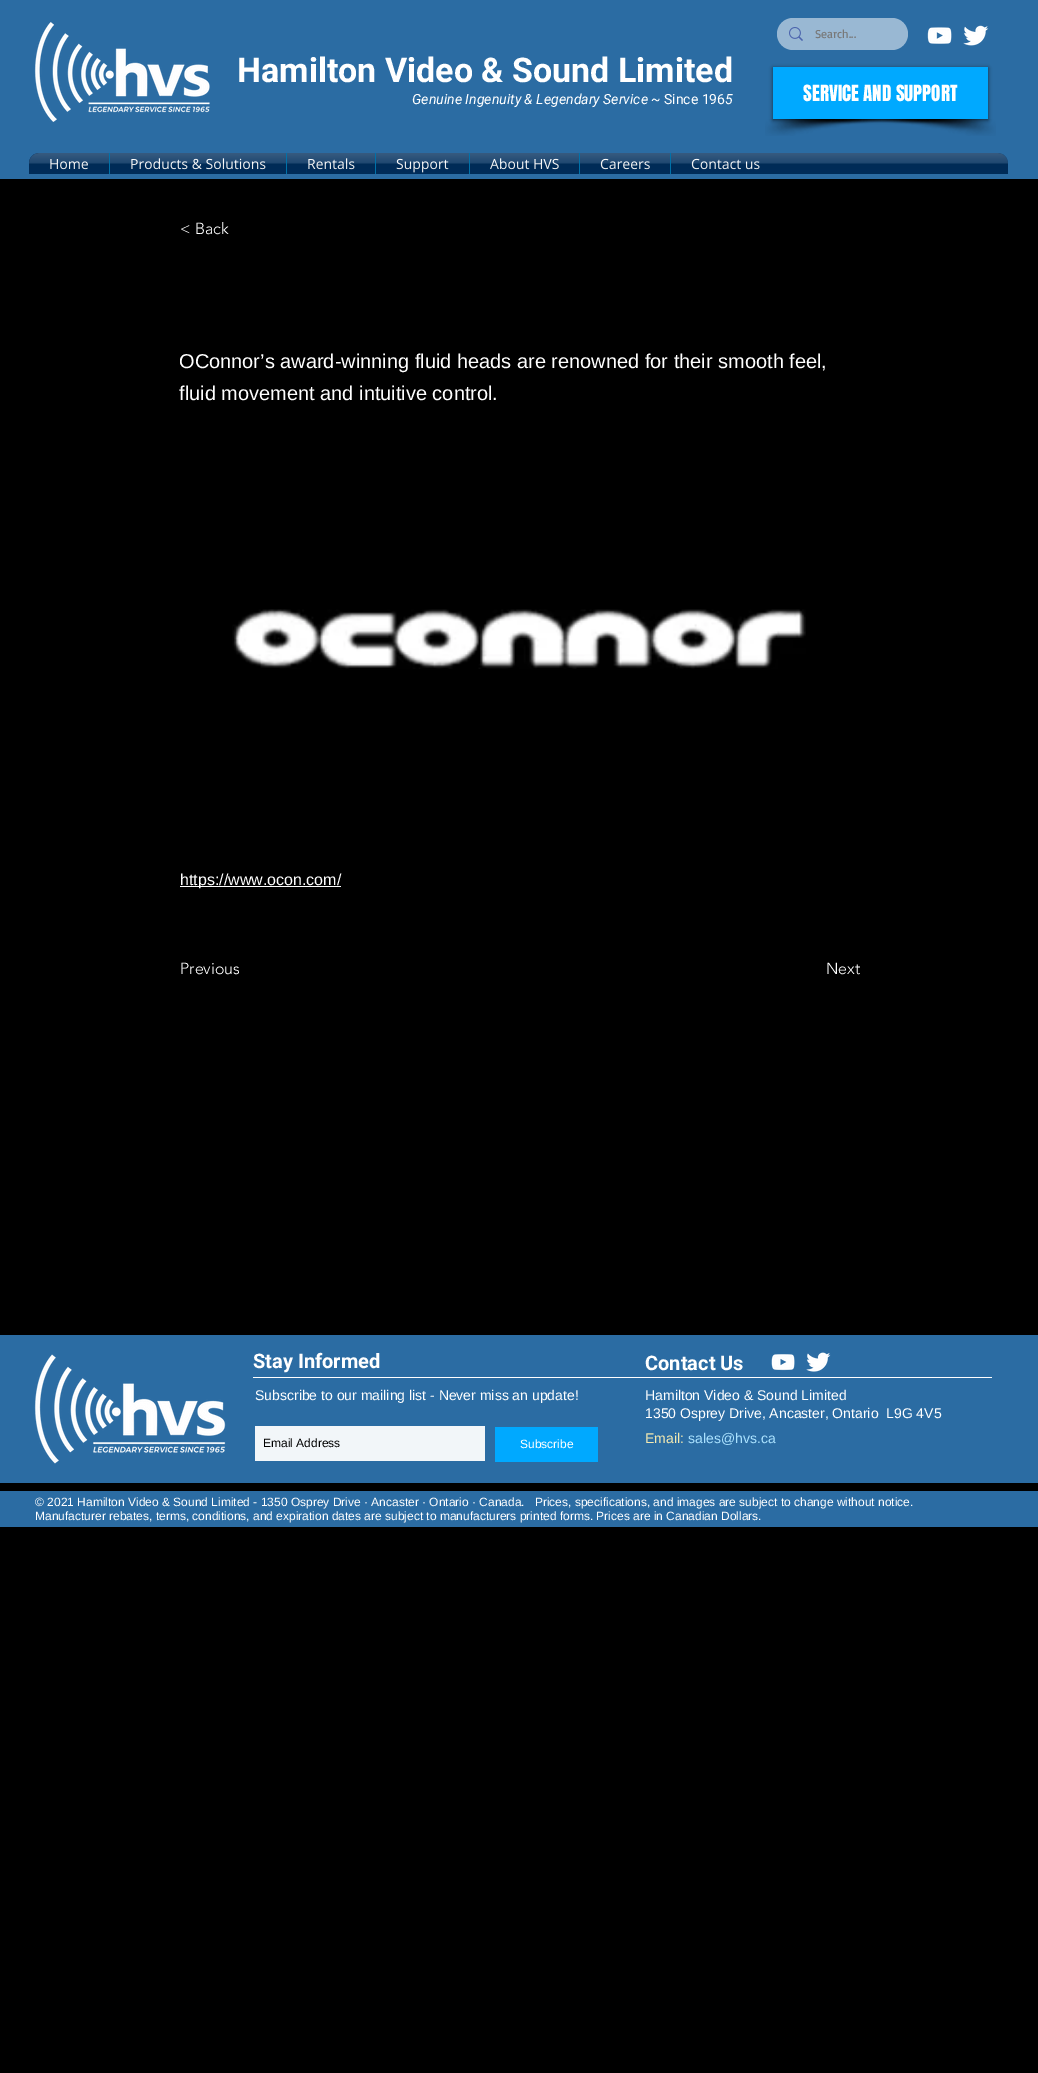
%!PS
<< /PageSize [1038 2073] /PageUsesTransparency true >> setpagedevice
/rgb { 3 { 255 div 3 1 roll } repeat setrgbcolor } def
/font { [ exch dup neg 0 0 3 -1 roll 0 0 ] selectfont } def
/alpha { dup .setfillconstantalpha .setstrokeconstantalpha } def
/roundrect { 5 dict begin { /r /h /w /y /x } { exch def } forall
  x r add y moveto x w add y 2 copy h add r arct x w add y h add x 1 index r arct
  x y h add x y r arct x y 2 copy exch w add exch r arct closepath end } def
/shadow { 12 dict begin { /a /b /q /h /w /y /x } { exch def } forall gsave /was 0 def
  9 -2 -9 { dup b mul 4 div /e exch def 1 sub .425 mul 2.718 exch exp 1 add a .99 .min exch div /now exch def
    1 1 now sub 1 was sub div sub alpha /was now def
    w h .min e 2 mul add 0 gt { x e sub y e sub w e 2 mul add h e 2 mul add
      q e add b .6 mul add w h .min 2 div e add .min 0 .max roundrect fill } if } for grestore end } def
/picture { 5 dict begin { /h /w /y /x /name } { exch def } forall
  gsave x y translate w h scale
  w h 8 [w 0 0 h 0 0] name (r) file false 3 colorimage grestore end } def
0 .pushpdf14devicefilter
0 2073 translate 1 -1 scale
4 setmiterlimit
0 0 0 rgb
0 0 1038 2073 rectfill
43 108 163 rgb
0 0 1038 179 rectfill
(img/1.rgb) 34 22 176 100 picture
153 184 211 rgb
777 18 131 32 16 roundrect fill
(img/2.rgb) 789 27 14 14 picture
(img/3.rgb) 927 27 25 17 picture
(img/4.rgb) 963 25 26 21 picture
(img/5.rgb) 765 119 148 17 picture
(img/6.rgb) 863 119 133 17 picture
0 0 0 rgb
773 68 215 52 0 2 0.6 shadow
0 169 255 rgb
773 67 215 52 rectfill
0 46 93 rgb
39 153 moveto 998 153 lineto 1003.5 153 1008 157.5 1008 163 curveto 1008 174 lineto 29 174 lineto 29 163 lineto 29 157.5 33.5 153 39 153 curveto closepath fill
(img/7.rgb) 29 153 979 21 picture
39 153 moveto 109 153 lineto 109 174 lineto 29 174 lineto 29 163 lineto 29 157.5 33.5 153 39 153 curveto closepath fill
[
  [110 153 176 21 0 46 93]
  [109 153 1 21 0 113 169]
  [287 153 88 21 0 46 93]
  [286 153 1 21 0 113 169]
  [376 153 93 21 0 46 93]
  [375 153 1 21 0 113 169]
  [470 153 109 21 0 46 93]
  [469 153 1 21 0 113 169]
  [580 153 90 21 0 46 93]
  [579 153 1 21 0 113 169]
  [671 153 109 21 0 46 93]
  [670 153 1 21 0 113 169]
] { aload pop rgb rectfill } forall
(img/15.rgb) 232 609 574 60 picture
255 255 255 rgb
180 886 161 1 rectfill
43 108 163 rgb
0 1335 1038 148 rectfill
(img/16.rgb) 34 1354 192 110 picture
(img/17.rgb) 771 1354 24 17 picture
(img/18.rgb) 806 1352 25 20 picture
[
  [253 1377 739 1 255 255 255]
  [255 1426 230 35 242 246 249]
  [495 1427 103 35 0 169 255]
  [0 1491 1038 36 43 108 163]
] { aload pop rgb rectfill } forall
/Basic-Regular 12 font
120 120 120 rgb
815 38 moveto (Search...) show
/Roboto-Bold 34 font
255 255 255 rgb
237 82 moveto (Hamilton Video & Sound Limited) show
/Roboto-Italic 14 font
412 104 moveto (Genuine Ingenuity & Legendary Service) show
/Roboto-Regular 14 font
651 104 moveto (~ Since 196) show
/Roboto-Italic 14 font
725 104 moveto (5) show
/Anton-Regular 19 font
803 101 moveto (SERVICE AND SUPPORT) show
/OpenSans-Regular 14 font
49 169 moveto (Home) show
(img/8.rgb) 29 153 80 21 picture
130 169 moveto (Products & Solutions) show
(img/9.rgb) 110 153 176 21 picture
307 169 moveto (Rentals) show
(img/10.rgb) 287 153 88 21 picture
396 169 moveto (Support) show
(img/11.rgb) 376 153 93 21 picture
490 169 moveto (About HVS) show
(img/12.rgb) 470 153 109 21 picture
600 169 moveto (Careers) show
(img/13.rgb) 580 153 90 21 picture
691 169 moveto (Contact us) show
(img/14.rgb) 671 153 109 21 picture
/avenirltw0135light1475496-Light 16 font
180 234 moveto (< Back) show
/LiberationSans-Regular 20 font
179 368 moveto (OConnor’s award-winning fluid heads are renowned for their smooth feel,) show
179 400 moveto (fluid movement and intuitive control.) show
/LiberationSans-Regular 16 font
180 885 moveto (https://www.ocon.com/) show
/avenirltw0135light1475496-Light 16 font
180 974 moveto (Previous) show
826 974 moveto (Next) show
/Roboto-Bold 20 font
253 1368 moveto (Stay Informed) show
645 1370 moveto (Contact Us) show
/LiberationSans-Regular 14 font
255 1400 moveto (Subscribe to our mailing list - Never miss an update!) show
/LiberationSans-Regular 12 font
0 0 0 rgb
263 1447 moveto (Email Address) show
255 255 255 rgb
520 1448 moveto (Subscribe) show
/LiberationSans-Regular 14 font
645 1400 moveto (Hamilton Video & Sound Limited) show
645 1418 moveto (1350 Osprey Drive, Ancaster, Ontario  L9G 4V5) show
244 234 177 rgb
645 1443 moveto (Email:) show
170 226 255 rgb
688 1443 moveto (sales@hvs.ca) show
/LiberationSans-Regular 12 font
255 255 255 rgb
35 1506 moveto (© 2021 Hamilton Video & Sound Limited - 1350 Osprey Drive · Ancaster · Ontario · Canada.   Prices, specifications, and images are subject to change without notice.) show
35 1520 moveto (Manufacturer rebates, terms, conditions, and expiration dates are subject to manufacturers printed forms. Prices are in Canadian Dollars.) show
.poppdf14devicefilter showpage
